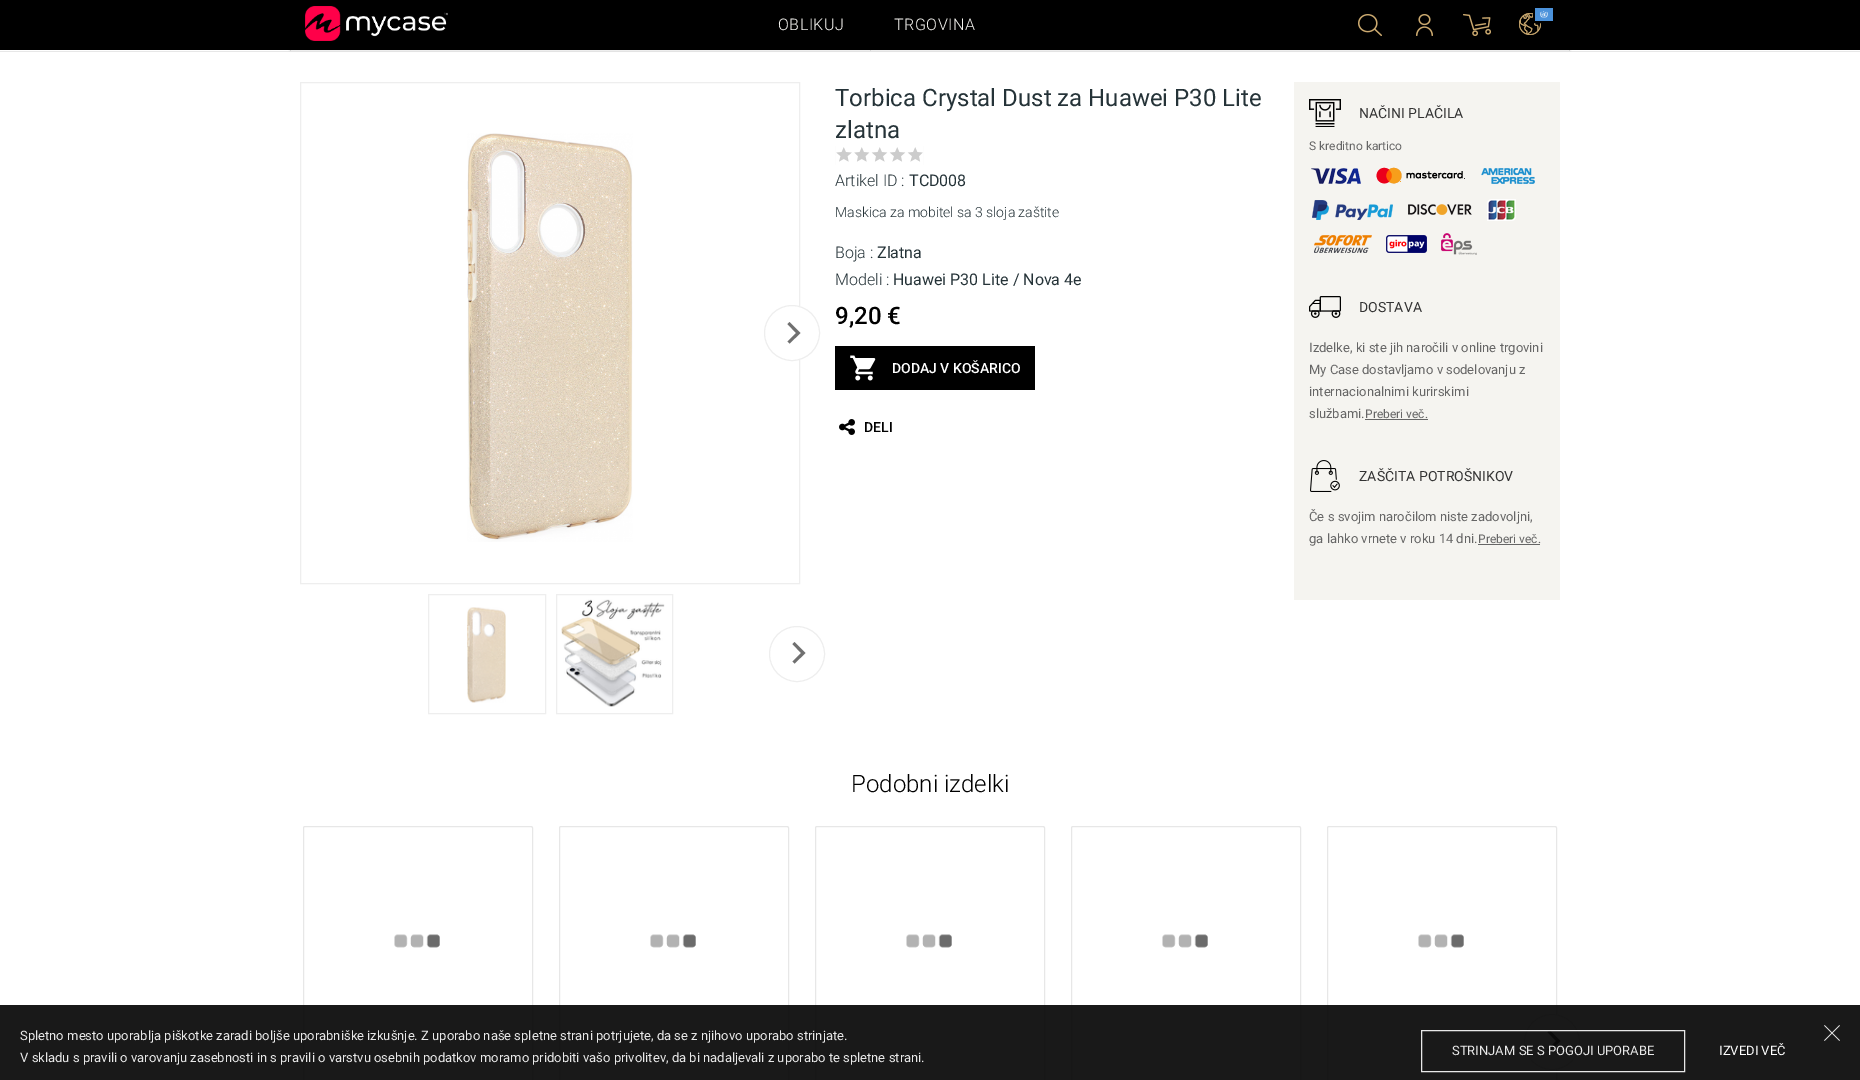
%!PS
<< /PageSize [1860 1080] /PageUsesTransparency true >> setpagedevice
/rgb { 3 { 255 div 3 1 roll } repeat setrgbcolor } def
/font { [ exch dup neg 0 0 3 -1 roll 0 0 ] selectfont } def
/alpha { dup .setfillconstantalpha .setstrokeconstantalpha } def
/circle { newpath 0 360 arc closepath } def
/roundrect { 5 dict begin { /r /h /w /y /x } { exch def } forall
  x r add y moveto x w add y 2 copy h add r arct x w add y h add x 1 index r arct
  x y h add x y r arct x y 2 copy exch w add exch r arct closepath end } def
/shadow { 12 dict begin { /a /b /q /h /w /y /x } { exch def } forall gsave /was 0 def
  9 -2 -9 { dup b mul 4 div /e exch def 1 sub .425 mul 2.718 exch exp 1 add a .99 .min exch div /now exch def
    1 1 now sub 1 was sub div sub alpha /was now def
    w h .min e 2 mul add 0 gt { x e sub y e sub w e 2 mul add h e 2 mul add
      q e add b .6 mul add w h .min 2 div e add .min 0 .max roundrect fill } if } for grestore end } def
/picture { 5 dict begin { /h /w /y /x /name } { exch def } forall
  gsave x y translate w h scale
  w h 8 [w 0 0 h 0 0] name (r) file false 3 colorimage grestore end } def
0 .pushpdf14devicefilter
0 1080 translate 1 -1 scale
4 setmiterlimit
255 255 255 rgb
0 0 1860 1080 rectfill
[
  [0 0 1860 50 0 0 0]
  [0 51 1860 1 231 231 231]
  [1569 50 1 1 231 231 231]
  [290 50 1 1 231 231 231]
  [870 50 1 1 231 231 231]
] { aload pop rgb rectfill } forall
gsave
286 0 moveto 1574 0 lineto 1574 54 lineto 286 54 lineto closepath 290 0 moveto 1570 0 lineto 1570 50 lineto 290 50 lineto closepath eoclip newpath
0 0 0 rgb
290 0 1280 50 0 1 0.2 shadow
grestore
(img/1.rgb) 305 6 143 35 picture
(img/2.rgb) 1358 14 24 22 picture
(img/3.rgb) 1416 14 17 22 picture
(img/4.rgb) 1463 14 28 22 picture
(img/5.rgb) 1519 13 22 22 picture
0 0 0 rgb
2 setlinewidth
1534 7 20 15 1 roundrect stroke
(img/6.rgb) 1535 8 18 13 picture
(img/7.rgb) 467 133 166 409 picture
238 238 238 rgb
1 setlinewidth
300.5 82.5 499 501 rectstroke
255 255 255 rgb
792 333 27.5 circle gsave fill grestore
238 238 238 rgb
stroke
112 112 112 rgb
800.5 333 moveto 789.5 322 lineto 787.5 324 lineto 796 333 lineto 787.5 341.5 lineto 789.5 343.5 lineto closepath fill
(img/8.rgb) 467 607 39 96 picture
238 238 238 rgb
428.5 594.5 117 119 rectstroke
(img/9.rgb) 561 599 104 108 picture
556.5 594.5 116 119 rectstroke
797 654 27.5 circle stroke
112 112 112 rgb
805.5 653 moveto 794.5 642 lineto 792.5 644 lineto 801 653 lineto 792.5 661.5 lineto 794.5 663.5 lineto closepath fill
204 204 204 rgb
835 146 89 19 rectfill
(img/10.rgb) 835 146 89 19 picture
0 0 0 rgb
835 346 200 44 rectfill
(img/11.rgb) 850 355 26 26 picture
(img/12.rgb) 839 419 16 16 picture
245 244 240 rgb
1294 82 266 518 rectfill
(img/13.rgb) 1309 99 32 28 picture
(img/14.rgb) 1311 168 50 16 picture
(img/15.rgb) 1376 167 89 17 picture
(img/16.rgb) 1481 168 54 16 picture
(img/17.rgb) 1312 200 81 20 picture
(img/18.rgb) 1408 204 64 11 picture
(img/19.rgb) 1487 199 29 22 picture
(img/20.rgb) 1314 235 58 18 picture
(img/21.rgb) 1386 235 41 18 picture
(img/22.rgb) 1441 233 36 22 picture
(img/23.rgb) 1309 296 32 22 picture
102 102 102 rgb
1365 419 63 1 rectfill
(img/24.rgb) 1310 460 30 32 picture
1478 544 62 1 rectfill
231 231 231 rgb
303.5 826.5 229 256 1.5 roundrect stroke
(img/25.rgb) 394 934 46 14 picture
559.5 826.5 229 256 1.5 roundrect stroke
(img/25.rgb) 650 934 46 14 picture
815.5 826.5 229 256 1.5 roundrect stroke
(img/25.rgb) 906 934 46 14 picture
1071.5 826.5 229 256 1.5 roundrect stroke
(img/25.rgb) 1162 934 46 14 picture
1327.5 826.5 229 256 1.5 roundrect stroke
(img/25.rgb) 1418 934 46 14 picture
255 255 255 rgb
1552 1042 27.5 circle gsave fill grestore
238 238 238 rgb
stroke
112 112 112 rgb
1560.5 1041 moveto 1549.5 1030 lineto 1547.5 1032 lineto 1556 1041 lineto 1547.5 1049.5 lineto 1549.5 1051.5 lineto closepath fill
0.9 alpha
0 0 0 rgb
0 1005 1860 75 rectfill
255 255 255 rgb
1421.5 1030.5 263 41 rectstroke
1 alpha
(img/26.rgb) 1824 1025 16 16 picture
/Roboto-Light 16 font
245 244 240 rgb
778 30 moveto 0.5 0 (OBLIKUJ) ashow
894 30 moveto 0.5 0 (TRGOVINA) ashow
/Roboto-Regular 24 font
37 51 56 rgb
835 106 moveto (Torbica Crystal Dust za Huawei P30 Lite) show
835 138 moveto (zlatna) show
/Roboto-Light 16 font
835 186 moveto (Artikel ID :) show
/Roboto-Regular 16 font
909 186 moveto (TCD008) show
/Roboto-Light 14 font
835 217 moveto (Maskica za mobitel sa 3 sloja zaštite) show
/Roboto-Light 16 font
835 258 moveto (Boja :) show
/Roboto-Regular 16 font
877 258 moveto (Zlatna) show
/Roboto-Light 16 font
835 285 moveto (Modeli :) show
/Roboto-Regular 16 font
893 285 moveto (Huawei P30 Lite / Nova 4e) show
/Roboto-Medium 24 font
0 0 0 rgb
835 324 moveto (9,20 €) show
/Roboto-Medium 14 font
255 255 255 rgb
892 373 moveto (DODAJ V KOŠARICO) show
0 0 0 rgb
864 432 moveto (DELI) show
/Roboto-Regular 14 font
51 51 51 rgb
1359 118 moveto (NAČINI PLAČILA) show
/Roboto-Regular 12 font
102 102 102 rgb
1309 150 moveto (S kreditno kartico) show
/Roboto-Regular 14 font
51 51 51 rgb
1359 312 moveto (DOSTAVA) show
/Roboto-Regular 13 font
102 102 102 rgb
[
  [(Izdelke, ki ste jih naročili v online trgovini) 1309 352]
  [(My Case dostavljamo v sodelovanju z) 1309 374]
  [(internacionalnimi kurirskimi) 1309 396]
  [(službami.) 1309 418]
] { aload pop moveto show } forall
/Roboto-Regular 12 font
1365 418 moveto (Preberi več.) show
/Roboto-Regular 14 font
51 51 51 rgb
1359 481 moveto (ZAŠČITA POTROŠNIKOV) show
/Roboto-Regular 13 font
102 102 102 rgb
1309 521 moveto (Če s svojim naročilom niste zadovoljni,) show
1309 543 moveto (ga lahko vrnete v roku 14 dni.) show
/Roboto-Regular 12 font
1478 543 moveto (Preberi več.) show
/Roboto-Light 24 font
0 0 0 rgb
851 792 moveto (Podobni izdelki) show
/Roboto-Regular 13 font
232 232 232 rgb
[
  [(Spletno mesto uporablja piškotke zaradi boljše uporabniške izkušnje. Z uporabo naše spletne strani potrjujete, da se z njihovo uporabo strinjate.) 20 1040]
  [(V skladu s pravili o varovanju zasebnosti in s pravili o varstvu osebnih podatkov moramo pridobiti vašo privolitev, da bi nadaljevali z uporabo te spletne strani.) 20 1062]
  [(STRINJAM SE S POGOJI UPORABE) 1452 1055]
] { aload pop moveto show } forall
255 255 255 rgb
1719 1055 moveto (IZVEDI VEČ) show
.poppdf14devicefilter showpage
